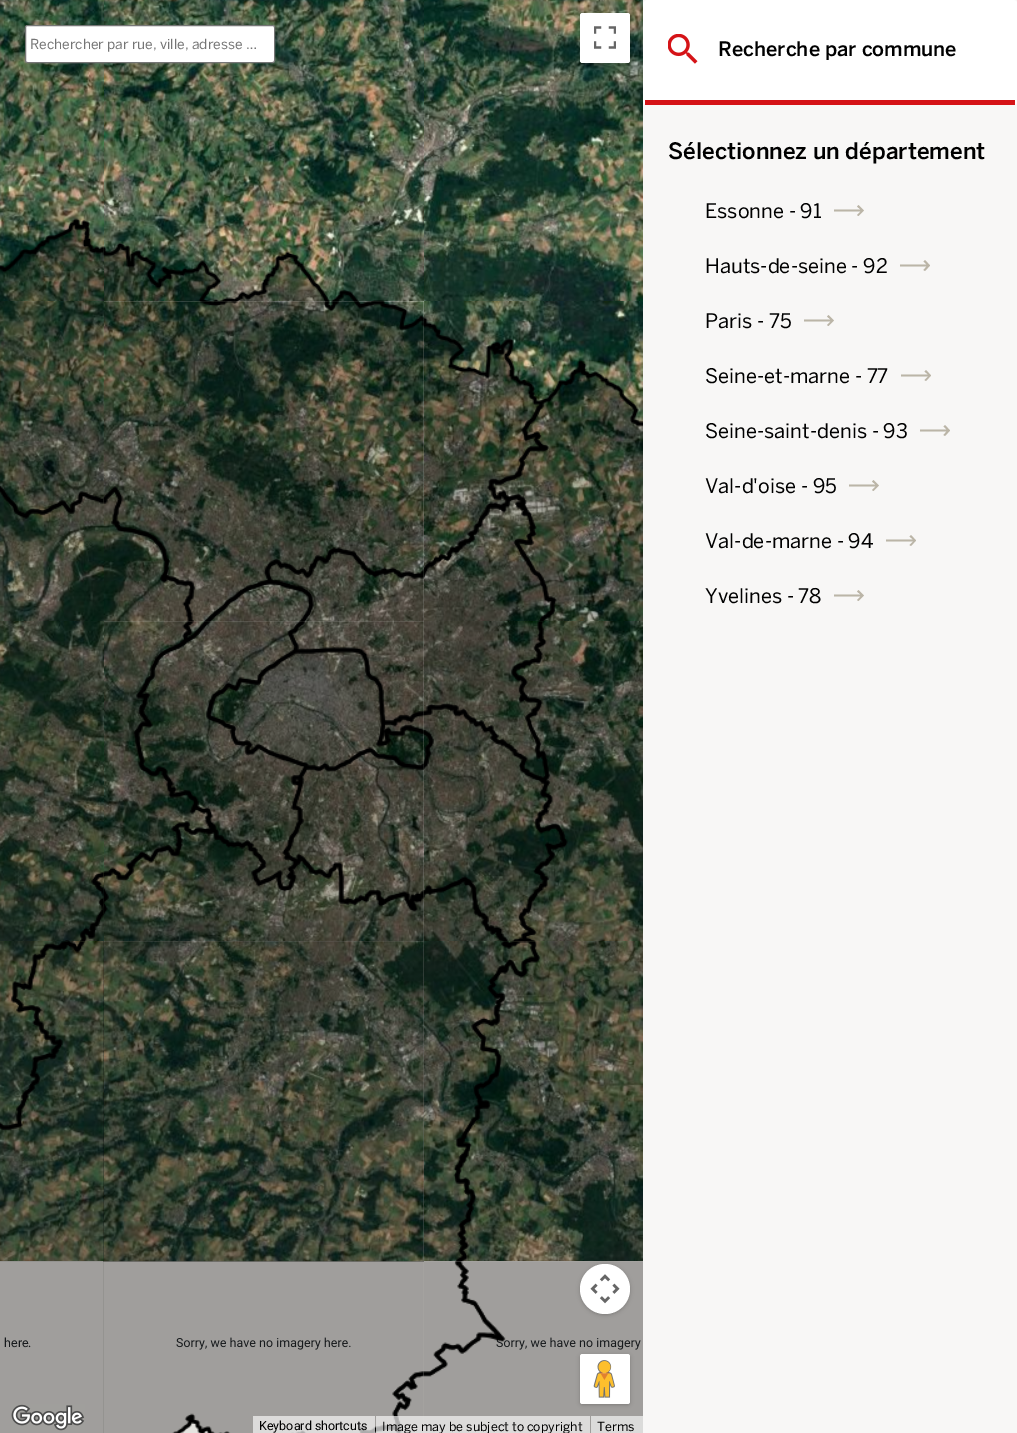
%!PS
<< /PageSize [1017 1433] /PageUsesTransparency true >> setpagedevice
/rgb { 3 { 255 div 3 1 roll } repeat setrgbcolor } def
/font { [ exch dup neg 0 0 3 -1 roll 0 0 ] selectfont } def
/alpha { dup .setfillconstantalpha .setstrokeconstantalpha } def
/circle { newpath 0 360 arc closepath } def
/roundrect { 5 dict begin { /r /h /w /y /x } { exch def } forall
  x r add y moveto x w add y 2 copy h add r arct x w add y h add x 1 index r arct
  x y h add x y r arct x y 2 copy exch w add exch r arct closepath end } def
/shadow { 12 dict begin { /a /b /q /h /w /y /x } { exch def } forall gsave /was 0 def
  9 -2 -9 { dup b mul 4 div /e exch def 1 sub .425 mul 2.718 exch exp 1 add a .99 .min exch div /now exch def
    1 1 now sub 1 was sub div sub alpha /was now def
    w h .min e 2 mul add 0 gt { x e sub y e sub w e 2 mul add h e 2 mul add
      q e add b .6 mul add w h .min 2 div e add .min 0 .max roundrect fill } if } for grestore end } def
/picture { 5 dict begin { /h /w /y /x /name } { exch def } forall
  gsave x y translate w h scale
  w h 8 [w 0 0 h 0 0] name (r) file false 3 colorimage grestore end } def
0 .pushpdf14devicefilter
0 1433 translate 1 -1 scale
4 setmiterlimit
229 227 223 rgb
0 0 1017 1433 rectfill
(img/16.rgb) 0 0 104 301 picture
(img/17.rgb) 104 0 320 301 picture
255 255 255 rgb
25.5 25.5 249 37 2 roundrect gsave fill grestore
118 118 118 rgb
stroke
(img/18.rgb) 424 0 219 301 picture
0 0 0 rgb
581 15 48 48 1 2.5 0.3 shadow
255 255 255 rgb
580 13 50 50 2.5 roundrect fill
(img/1.rgb) 594 26 22 23 picture
(img/19.rgb) 0 301 104 320 picture
(img/22.rgb) 0 621 104 320 picture
(img/23.rgb) 104 621 320 321 picture
(img/20.rgb) 103 301 321 321 picture
(img/26.rgb) 103 941 321 321 picture
(img/25.rgb) 0 941 104 320 picture
(img/10.rgb) 103 621 321 321 picture
(img/9.rgb) 0 621 104 321 picture
(img/6.rgb) 0 301 104 321 picture
(img/7.rgb) 103 301 321 321 picture
(img/4.rgb) 0 218 104 84 picture
(img/5.rgb) 103 242 281 60 picture
(img/21.rgb) 424 301 219 320 picture
(img/24.rgb) 424 621 219 320 picture
(img/8.rgb) 423 317 220 305 picture
(img/27.rgb) 424 941 219 320 picture
(img/11.rgb) 423 621 220 321 picture
(img/13.rgb) 423 941 220 321 picture
0.3 alpha
0 0 0 rgb
103 941 321 321 rectfill
1 alpha
(img/12.rgb) 0 941 104 321 picture
248 247 246 rgb
643 0 374 1433 rectfill
255 255 255 rgb
643 0 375 105 5 roundrect fill
(img/29.rgb) 668 34 30 30 picture
213 19 23 rgb
645 100 370 5 rectfill
187 181 167 rgb
860.5 209.5 moveto 857 206.5 lineto 858.5 205 lineto 864 210.5 lineto 858.5 216 lineto 857 215 lineto 860.5 211.5 lineto 834 211.5 lineto 834 209.5 lineto closepath eofill
926.5 264.5 moveto 923.5 261.5 lineto 925 260 lineto 930 265.5 lineto 925 271 lineto 923.5 270 lineto 926.5 266.5 lineto 900 266.5 lineto 900 264.5 lineto closepath eofill
830.5 319.5 moveto 827 316.5 lineto 828.5 315 lineto 834 320.5 lineto 828.5 326 lineto 827 325 lineto 830.5 321.5 lineto 804 321.5 lineto 804 319.5 lineto closepath eofill
928 374.5 moveto 924.5 371.5 lineto 926 370 lineto 931 375.5 lineto 926 381 lineto 924.5 380 lineto 928 376.5 lineto 901 376.5 lineto 901 374.5 lineto closepath eofill
946.5 429.5 moveto 943.5 426.5 lineto 945 425 lineto 950 430.5 lineto 945 436 lineto 943.5 435 lineto 946.5 431.5 lineto 920 431.5 lineto 920 429.5 lineto closepath eofill
875.5 484.5 moveto 872 481.5 lineto 873.5 480 lineto 879 485.5 lineto 873.5 491 lineto 872 490 lineto 875.5 486.5 lineto 849 486.5 lineto 849 484.5 lineto closepath eofill
913 539.5 moveto 909.5 536.5 lineto 911 535 lineto 916 540.5 lineto 911 546 lineto 909.5 545 lineto 913 541.5 lineto 886 541.5 lineto 886 539.5 lineto closepath eofill
860.5 594.5 moveto 857 591.5 lineto 858.5 590 lineto 864 595.5 lineto 858.5 601 lineto 857 600 lineto 860.5 596.5 lineto 834 596.5 lineto 834 594.5 lineto closepath eofill
/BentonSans-Regular 13.75 font
117 117 117 rgb
30 49 moveto (Rechercher par rue, ville, adresse …) show
/Roboto-Regular 12.5 font
33 37 41 rgb
[
  [(here.) 4 1347]
  [(Sorry, we have no imagery here.) 176 1347]
  [(Sorry, we have no imagery) 496 1347]
] { aload pop moveto show } forall
(img/15.rgb) 423 1261 220 172 picture
0 0 0 rgb
581 1356 48 48 1 2.5 0.3 shadow
255 255 255 rgb
580 1354 50 50 2.5 roundrect fill
(img/3.rgb) 593 1360 22 38 picture
0 0 0 rgb
581 1266 48 48 24 2.5 0.3 shadow
255 255 255 rgb
605 1289 25 circle fill
(img/2.rgb) 590 1274 30 30 picture
(img/14.rgb) 103 1261 321 172 picture
0.3 alpha
0 0 0 rgb
0 1261 104 172 rectfill
1 alpha
(img/28.rgb) 11 1404 74 27 picture
0.7 alpha
245 245 245 rgb
253 1416 122 17 rectfill
1 alpha
0 0 0 rgb
259 1430 moveto (Keyboard shortcuts) show
0.7 alpha
245 245 245 rgb
376 1416 214 17 rectfill
/BentonSans-Regular 12.5 font
1 alpha
0 0 0 rgb
382 1431 moveto (Image may be subject to copyright) show
219 219 218 rgb
591 1416 52 17 rectfill
0 0 0 rgb
597 1431 moveto (Terms) show
/BentonSans-Medium 20 font
718 56 moveto (Recherche par commune) show
/BentonSans-Medium 22.5 font
668 159 moveto (Sélectionnez un département) show
/BentonSans-Regular 20 font
[
  [(Essonne - 91) 705 218]
  [(Hauts-de-seine - 92) 705 273]
  [(Paris - 75) 705 328]
  [(Seine-et-marne - 77) 705 383]
  [(Seine-saint-denis - 93) 705 438]
  [(Val-d'oise - 95) 705 493]
  [(Val-de-marne - 94) 705 548]
  [(Yvelines - 78) 705 603]
] { aload pop moveto show } forall
.poppdf14devicefilter showpage
